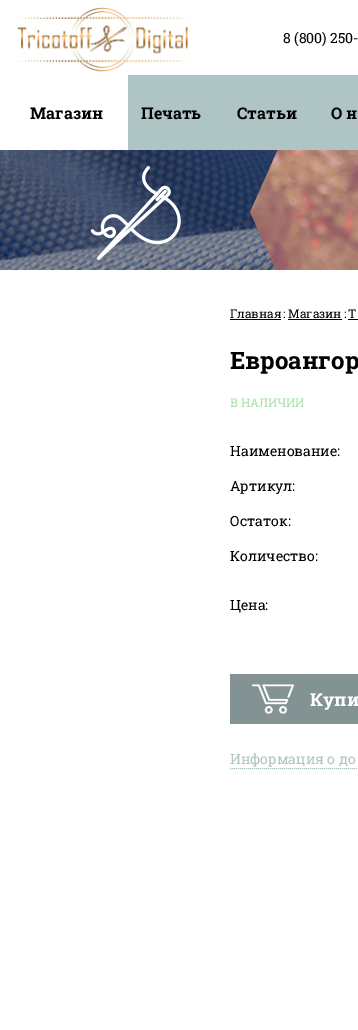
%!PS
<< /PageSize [358 1030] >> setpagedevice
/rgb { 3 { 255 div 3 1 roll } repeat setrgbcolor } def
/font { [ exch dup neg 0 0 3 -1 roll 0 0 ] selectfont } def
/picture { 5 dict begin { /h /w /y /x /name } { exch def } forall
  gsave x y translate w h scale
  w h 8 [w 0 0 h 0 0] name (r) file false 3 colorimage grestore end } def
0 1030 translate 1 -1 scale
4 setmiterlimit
175 196 197 rgb
0 0 358 1030 rectfill
255 255 255 rgb
0 0 358 75 rectfill
(img/1.rgb) 17 7 172 65 picture
0 75 128 75 rectfill
(img/2.rgb) 0 150 358 120 picture
(img/3.rgb) 90 166 91 94 picture
[
  [0 270 358 760 255 255 255]
  [230 319 51 1 0 0 0]
  [288 319 54 1 0 0 0]
  [348 319 10 1 0 0 0]
  [230 674 128 50 131 147 148]
] { aload pop rgb rectfill } forall
(img/4.rgb) 252 684 42 30 picture
175 196 197 rgb
[1 1] 0 setdash
230 768.5 moveto 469 768.5 lineto stroke
/RobotoSlab-Regular 14 font
0 0 0 rgb
283 43 moveto (8 \(800\) 250-) show
/RobotoSlab-Bold 16 font
[
  [(Магазин) 30 119]
  [(Печать) 141 119]
  [(Статьи) 237 119]
  [(О н) 331 119]
] { aload pop moveto show } forall
/RobotoSlab-Regular 12 font
[
  [(Главная) 230 318]
  [(:) 283 318]
  [(Магазин) 288 318]
  [(:) 344 318]
  [(Т) 348 318]
] { aload pop moveto show } forall
/RobotoSlab-Bold 24 font
230 369 moveto (Евроангор) show
/RobotoSlab-Regular 12 font
163 223 165 rgb
230 407 moveto (В НАЛИЧИИ) show
/RobotoSlab-Regular 14 font
0 0 0 rgb
[
  [(Наименование:) 230 456]
  [(Артикул:) 230 491]
  [(Остаток:) 230 526]
  [(Количество:) 230 561]
  [(Цена:) 230 610]
] { aload pop moveto show } forall
/RobotoSlab-Bold 18 font
255 255 255 rgb
310 706 moveto (Купи) show
/RobotoSlab-Regular 14 font
175 196 197 rgb
230 764 moveto (Информация о до) show
showpage
